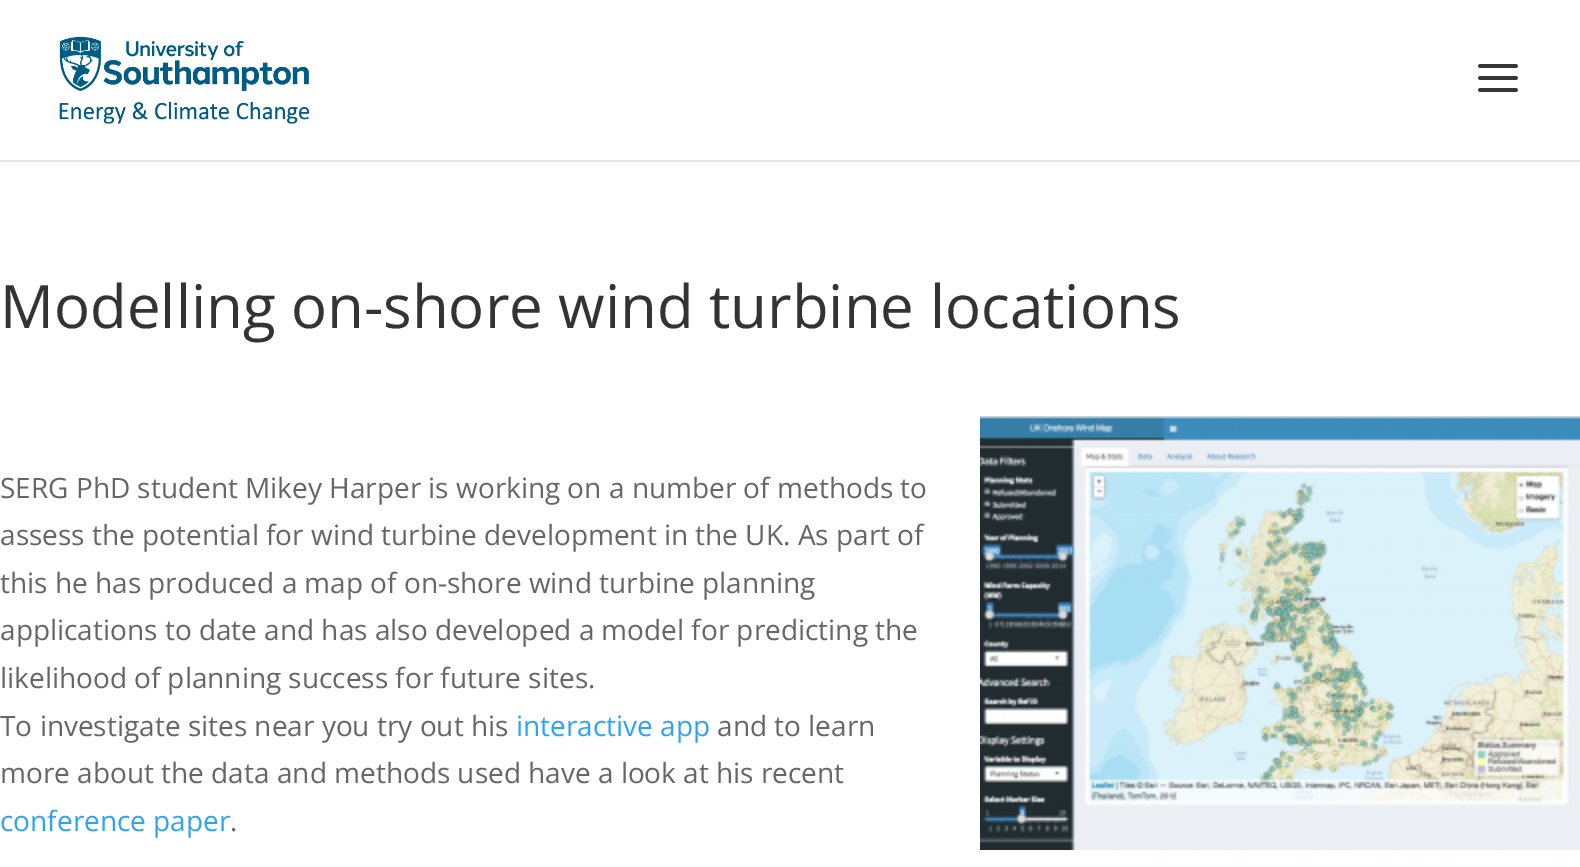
%!PS
<< /PageSize [1580 867] >> setpagedevice
/rgb { 3 { 255 div 3 1 roll } repeat setrgbcolor } def
/font { [ exch dup neg 0 0 3 -1 roll 0 0 ] selectfont } def
/picture { 5 dict begin { /h /w /y /x /name } { exch def } forall
  gsave x y translate w h scale
  w h 8 [w 0 0 h 0 0] name (r) file false 3 colorimage grestore end } def
0 867 translate 1 -1 scale
4 setmiterlimit
255 255 255 rgb
0 0 1580 867 rectfill
230 230 230 rgb
0 160 1580 2 rectfill
(img/1.rgb) 59 36 251 88 picture
(img/2.rgb) 1478 64 40 28 picture
(img/3.rgb) 980 416 600 434 picture
/OpenSans-Regular 60 font
51 51 51 rgb
0 328 moveto (Modelling on-shore wind turbine locations) show
/OpenSans-Regular 28 font
102 102 102 rgb
[
  [(SERG PhD student Mikey Harper is working on a number of methods to) 0 498]
  [(assess the potential for wind turbine development in the UK. As part of) 0 545]
  [(this he has produced a map of on-shore wind turbine planning) 0 593]
  [(applications to date and has also developed a model for predicting the) 0 640]
  [(likelihood of planning success for future sites.) 0 688]
  [(To investigate sites near you try out his) 0 736]
] { aload pop moveto show } forall
46 163 242 rgb
516 736 moveto (interactive app) show
102 102 102 rgb
717 736 moveto (and to learn) show
0 783 moveto (more about the data and methods used have a look at his recent) show
46 163 242 rgb
0 831 moveto (conference paper) show
102 102 102 rgb
230 831 moveto (.) show
showpage
